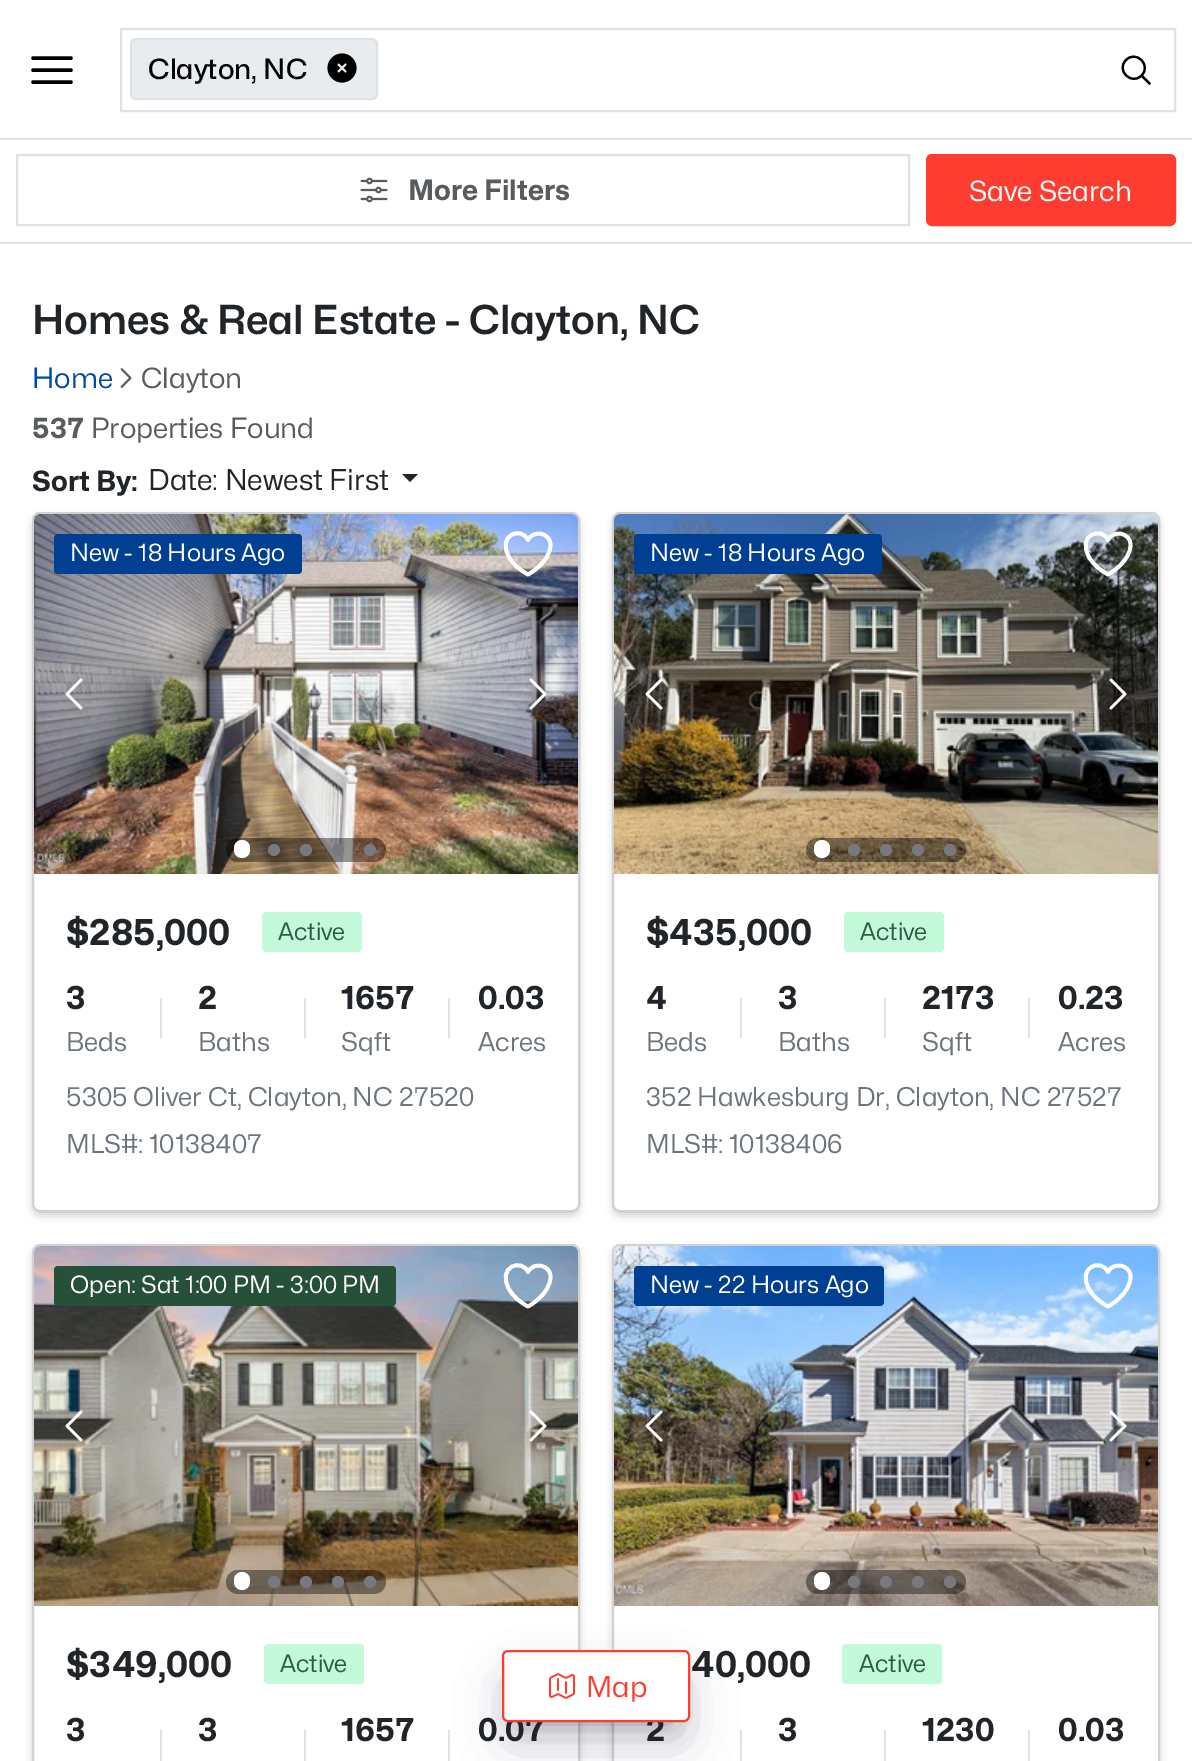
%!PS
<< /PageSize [1192 1761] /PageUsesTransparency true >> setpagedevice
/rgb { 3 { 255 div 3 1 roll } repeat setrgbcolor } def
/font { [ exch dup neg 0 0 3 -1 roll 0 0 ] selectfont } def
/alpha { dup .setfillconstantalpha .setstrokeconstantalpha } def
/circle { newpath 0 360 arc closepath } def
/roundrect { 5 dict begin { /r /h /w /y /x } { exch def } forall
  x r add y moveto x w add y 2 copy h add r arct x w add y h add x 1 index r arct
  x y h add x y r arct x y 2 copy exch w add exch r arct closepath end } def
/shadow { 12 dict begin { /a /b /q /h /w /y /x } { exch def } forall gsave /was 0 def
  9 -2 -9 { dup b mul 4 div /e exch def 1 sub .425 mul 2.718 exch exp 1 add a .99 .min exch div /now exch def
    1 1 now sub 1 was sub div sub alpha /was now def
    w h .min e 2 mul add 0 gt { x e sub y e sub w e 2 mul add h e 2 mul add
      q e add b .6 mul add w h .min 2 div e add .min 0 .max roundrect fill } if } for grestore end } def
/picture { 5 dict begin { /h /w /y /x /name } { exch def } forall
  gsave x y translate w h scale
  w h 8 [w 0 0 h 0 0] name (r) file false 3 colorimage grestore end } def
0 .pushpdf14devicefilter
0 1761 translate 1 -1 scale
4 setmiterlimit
255 255 255 rgb
0 0 1192 1761 rectfill
222 226 230 rgb
0 138 1192 2 rectfill
0 0 0 rgb
3.5 setlinewidth
1 setlinecap
1 setlinejoin
33 58 moveto 71 58 lineto 33 70 moveto 71 70 lineto 33 82 moveto 71 82 lineto stroke
222 226 230 rgb
2 setlinewidth
0 setlinecap
0 setlinejoin
121 29 1054 82 rectstroke
233 236 239 rgb
131 39 246 60 5 roundrect gsave fill grestore
222 226 230 rgb
stroke
(img/1.rgb) 327 53 30 30 picture
0 0 0 rgb
2.2 setlinewidth
1 setlinecap
1 setlinejoin
1149.5 83.5 moveto 1141.5 75.5 lineto 1141.5 75.5 moveto 1152 65.5 1136 49.5 1126 60 curveto 1115.5 70 1131.5 86 1141.5 75.5 curveto closepath stroke
222 226 230 rgb
0 242 1192 2 rectfill
2 setlinewidth
0 setlinecap
0 setlinejoin
17 155 892 70 rectstroke
(img/2.rgb) 360 177 28 26 picture
254 60 48 rgb
927 155 248 70 5 roundrect gsave fill grestore
stroke
89 92 95 rgb
1.8 setlinewidth
1 setlinecap
1 setlinejoin
121.5 369 moveto 130.5 378 lineto 121.5 387 lineto stroke
33 37 41 rgb
402 474 moveto 418 474 lineto 410 482 lineto closepath fill
0 0 0 rgb
32 516 548 700 8 4 0.16 shadow
255 255 255 rgb
32 512 548 700 8 roundrect fill
0.18 alpha
0 0 0 rgb
2 setlinewidth
0 setlinecap
0 setlinejoin
33 513 546 698 7 roundrect stroke
1 alpha
(img/3.rgb) 34 514 544 360 picture
255 255 255 rgb
2.8 setlinewidth
1 setlinecap
1 setlinejoin
81 708 moveto 67 694 lineto 81 680 lineto stroke
531 680 moveto 545 694 lineto 531 708 lineto stroke
0.4 alpha
0 0 0 rgb
226 838 160 24 12 roundrect fill
1 alpha
255 255 255 rgb
234 840 16 18 8 roundrect fill
120 121 124 rgb
274 850 6 circle fill
306 850 6 circle fill
338 850 6 circle fill
370 850 6 circle fill
0 63 145 rgb
54 534 248 40 4 roundrect fill
255 255 255 rgb
3.8 setlinewidth
550.5 544.5 moveto 550.5 532.5 533 529.5 528 540 curveto 522 526 496.5 534.5 509 557 curveto 513 564.5 520.5 570.5 528 574.5 curveto 528 574.5 550.5 562.5 550.5 544.5 curveto closepath stroke
194 250 218 rgb
262 912 100 40 4 roundrect fill
[
  [160 998 2 40 222 226 230]
  [304 998 2 40 222 226 230]
  [448 998 2 40 222 226 230]
] { aload pop rgb rectfill } forall
0 0 0 rgb
612 516 548 700 8 4 0.16 shadow
255 255 255 rgb
612 512 548 700 8 roundrect fill
0.18 alpha
0 0 0 rgb
2 setlinewidth
0 setlinecap
0 setlinejoin
613 513 546 698 7 roundrect stroke
1 alpha
(img/4.rgb) 614 514 544 360 picture
255 255 255 rgb
2.8 setlinewidth
1 setlinecap
1 setlinejoin
661 708 moveto 647 694 lineto 661 680 lineto stroke
1111 680 moveto 1125 694 lineto 1111 708 lineto stroke
0.4 alpha
0 0 0 rgb
806 838 160 24 12 roundrect fill
1 alpha
255 255 255 rgb
814 840 16 18 8 roundrect fill
120 121 124 rgb
854 850 6 circle fill
886 850 6 circle fill
918 850 6 circle fill
950 850 6 circle fill
0 63 145 rgb
634 534 248 40 4 roundrect fill
255 255 255 rgb
3.8 setlinewidth
1130.5 544.5 moveto 1130.5 532.5 1113 529.5 1108 540 curveto 1102 526 1076.5 534.5 1089 557 curveto 1093 564.5 1100.5 570.5 1108 574.5 curveto 1108 574.5 1130.5 562.5 1130.5 544.5 curveto closepath stroke
194 250 218 rgb
844 912 100 40 4 roundrect fill
[
  [740 998 2 40 222 226 230]
  [884 998 2 40 222 226 230]
  [1028 998 2 40 222 226 230]
] { aload pop rgb rectfill } forall
0 0 0 rgb
32 1248 548 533 8 4 0.16 shadow
255 255 255 rgb
33 1245 546 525 7 roundrect gsave fill grestore
210 210 210 rgb
2 setlinewidth
0 setlinecap
0 setlinejoin
stroke
(img/5.rgb) 34 1246 544 360 picture
255 255 255 rgb
2.8 setlinewidth
1 setlinecap
1 setlinejoin
81 1440 moveto 67 1426 lineto 81 1412 lineto stroke
531 1412 moveto 545 1426 lineto 531 1440 lineto stroke
0.4 alpha
0 0 0 rgb
226 1570 160 24 12 roundrect fill
1 alpha
255 255 255 rgb
234 1572 16 18 8 roundrect fill
120 121 124 rgb
274 1582 6 circle fill
306 1582 6 circle fill
338 1582 6 circle fill
370 1582 6 circle fill
39 80 57 rgb
54 1266 342 40 4 roundrect fill
255 255 255 rgb
3.8 setlinewidth
550.5 1276.5 moveto 550.5 1264.5 533 1261.5 528 1272 curveto 522 1258 496.5 1266.5 509 1289 curveto 513 1296.5 520.5 1302.5 528 1306.5 curveto 528 1306.5 550.5 1294.5 550.5 1276.5 curveto closepath stroke
194 250 218 rgb
264 1644 100 40 4 roundrect fill
[
  [160 1730 2 31 222 226 230]
  [304 1730 2 31 222 226 230]
  [448 1730 2 31 222 226 230]
] { aload pop rgb rectfill } forall
0 0 0 rgb
612 1248 548 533 8 4 0.16 shadow
255 255 255 rgb
613 1245 546 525 7 roundrect gsave fill grestore
210 210 210 rgb
2 setlinewidth
0 setlinecap
0 setlinejoin
stroke
(img/6.rgb) 614 1246 544 360 picture
255 255 255 rgb
2.8 setlinewidth
1 setlinecap
1 setlinejoin
661 1440 moveto 647 1426 lineto 661 1412 lineto stroke
1111 1412 moveto 1125 1426 lineto 1111 1440 lineto stroke
0.4 alpha
0 0 0 rgb
806 1570 160 24 12 roundrect fill
1 alpha
255 255 255 rgb
814 1572 16 18 8 roundrect fill
120 121 124 rgb
854 1582 6 circle fill
886 1582 6 circle fill
918 1582 6 circle fill
950 1582 6 circle fill
0 63 145 rgb
634 1266 250 40 4 roundrect fill
255 255 255 rgb
3.8 setlinewidth
1130.5 1276.5 moveto 1130.5 1264.5 1113 1261.5 1108 1272 curveto 1102 1258 1076.5 1266.5 1089 1289 curveto 1093 1296.5 1100.5 1302.5 1108 1306.5 curveto 1108 1306.5 1130.5 1294.5 1130.5 1276.5 curveto closepath stroke
194 250 218 rgb
842 1644 100 40 4 roundrect fill
[
  [740 1730 2 31 222 226 230]
  [884 1730 2 31 222 226 230]
  [1028 1730 2 31 222 226 230]
] { aload pop rgb rectfill } forall
0 0 0 rgb
518 1682 156 40 0 16 0.3 shadow
50 50 93 rgb
512 1686 168 52 0 27 0.25 shadow
/MonaSans-Medium 28 font
0 0 0 rgb
148 79 moveto (Clayton, NC) show
/MonaSans-Bold 28 font
89 92 95 rgb
408 200 moveto (More Filters) show
/MonaSans-Regular 28 font
255 255 255 rgb
969 201 moveto (Save Search) show
/MonaSans-SemiBold 40 font
33 37 41 rgb
32 334 moveto (Homes & Real Estate - Clayton, NC) show
/MonaSans-Regular 28 font
0 73 167 rgb
32 388 moveto (Home) show
89 92 95 rgb
141 388 moveto (Clayton) show
/MonaSans-Bold 28 font
32 438 moveto (537) show
/MonaSans-Regular 28 font
91 438 moveto (Properties Found) show
/MonaSans-Bold 28 font
33 37 41 rgb
32 491 moveto (Sort By:) show
/MonaSans-Regular 28.75 font
148 490 moveto (Date: Newest First) show
/MonaSans-Regular 24 font
255 255 255 rgb
70 561 moveto (New - 18 Hours Ago) show
/MonaSans-Bold 36 font
33 37 41 rgb
66 945 moveto ($285,000) show
/MonaSans-Regular 24 font
45 92 66 rgb
278 940 moveto (Active) show
/MonaSans-Bold 32 font
33 37 41 rgb
66 1009 moveto (3) show
/MonaSans-Regular 26 font
108 117 125 rgb
66 1051 moveto (Beds) show
/MonaSans-Bold 32 font
33 37 41 rgb
198 1009 moveto (2) show
/MonaSans-Regular 26 font
108 117 125 rgb
198 1051 moveto (Baths) show
/MonaSans-Bold 32 font
33 37 41 rgb
341 1009 moveto (1657) show
/MonaSans-Regular 26 font
108 117 125 rgb
341 1051 moveto (Sqft) show
/MonaSans-Bold 32 font
33 37 41 rgb
478 1009 moveto (0.03) show
/MonaSans-Regular 26 font
108 117 125 rgb
[
  [(Acres) 478 1051]
  [(5305 Oliver Ct, Clayton, NC 27520) 66 1106]
  [(MLS#: 10138407) 66 1153]
] { aload pop moveto show } forall
/MonaSans-Regular 24 font
255 255 255 rgb
650 561 moveto (New - 18 Hours Ago) show
/MonaSans-Bold 36 font
33 37 41 rgb
646 945 moveto ($435,000) show
/MonaSans-Regular 24 font
45 92 66 rgb
860 940 moveto (Active) show
/MonaSans-Bold 32 font
33 37 41 rgb
646 1009 moveto (4) show
/MonaSans-Regular 26 font
108 117 125 rgb
646 1051 moveto (Beds) show
/MonaSans-Bold 32 font
33 37 41 rgb
778 1009 moveto (3) show
/MonaSans-Regular 26 font
108 117 125 rgb
778 1051 moveto (Baths) show
/MonaSans-Bold 32 font
33 37 41 rgb
922 1009 moveto (2173) show
/MonaSans-Regular 26 font
108 117 125 rgb
922 1051 moveto (Sqft) show
/MonaSans-Bold 32 font
33 37 41 rgb
1058 1009 moveto (0.23) show
/MonaSans-Regular 26 font
108 117 125 rgb
[
  [(Acres) 1058 1051]
  [(352 Hawkesburg Dr, Clayton, NC 27527) 646 1106]
  [(MLS#: 10138406) 646 1153]
] { aload pop moveto show } forall
/MonaSans-Regular 24 font
255 255 255 rgb
70 1293 moveto (Open: Sat 1:00 PM - 3:00 PM) show
/MonaSans-Bold 36 font
33 37 41 rgb
66 1677 moveto ($349,000) show
/MonaSans-Regular 24 font
45 92 66 rgb
280 1672 moveto (Active) show
/MonaSans-Bold 32 font
33 37 41 rgb
[
  [(3) 66 1741]
  [(3) 198 1741]
  [(1657) 341 1741]
  [(0.07) 478 1741]
] { aload pop moveto show } forall
/MonaSans-Regular 24 font
255 255 255 rgb
650 1293 moveto (New - 22 Hours Ago) show
/MonaSans-Bold 36 font
33 37 41 rgb
691 1677 moveto (40,000) show
/MonaSans-Regular 24 font
45 92 66 rgb
859 1672 moveto (Active) show
/MonaSans-Bold 32 font
33 37 41 rgb
[
  [(2) 646 1741]
  [(3) 778 1741]
  [(1230) 922 1741]
  [(0.03) 1058 1741]
] { aload pop moveto show } forall
255 255 255 rgb
503 1651 186 70 5 roundrect gsave fill grestore
254 60 48 rgb
2 setlinewidth
0 setlinecap
0 setlinejoin
stroke
(img/7.rgb) 549 1673 26 26 picture
/MonaSans-Regular 28.75 font
586 1697 moveto (Map) show
.poppdf14devicefilter showpage
